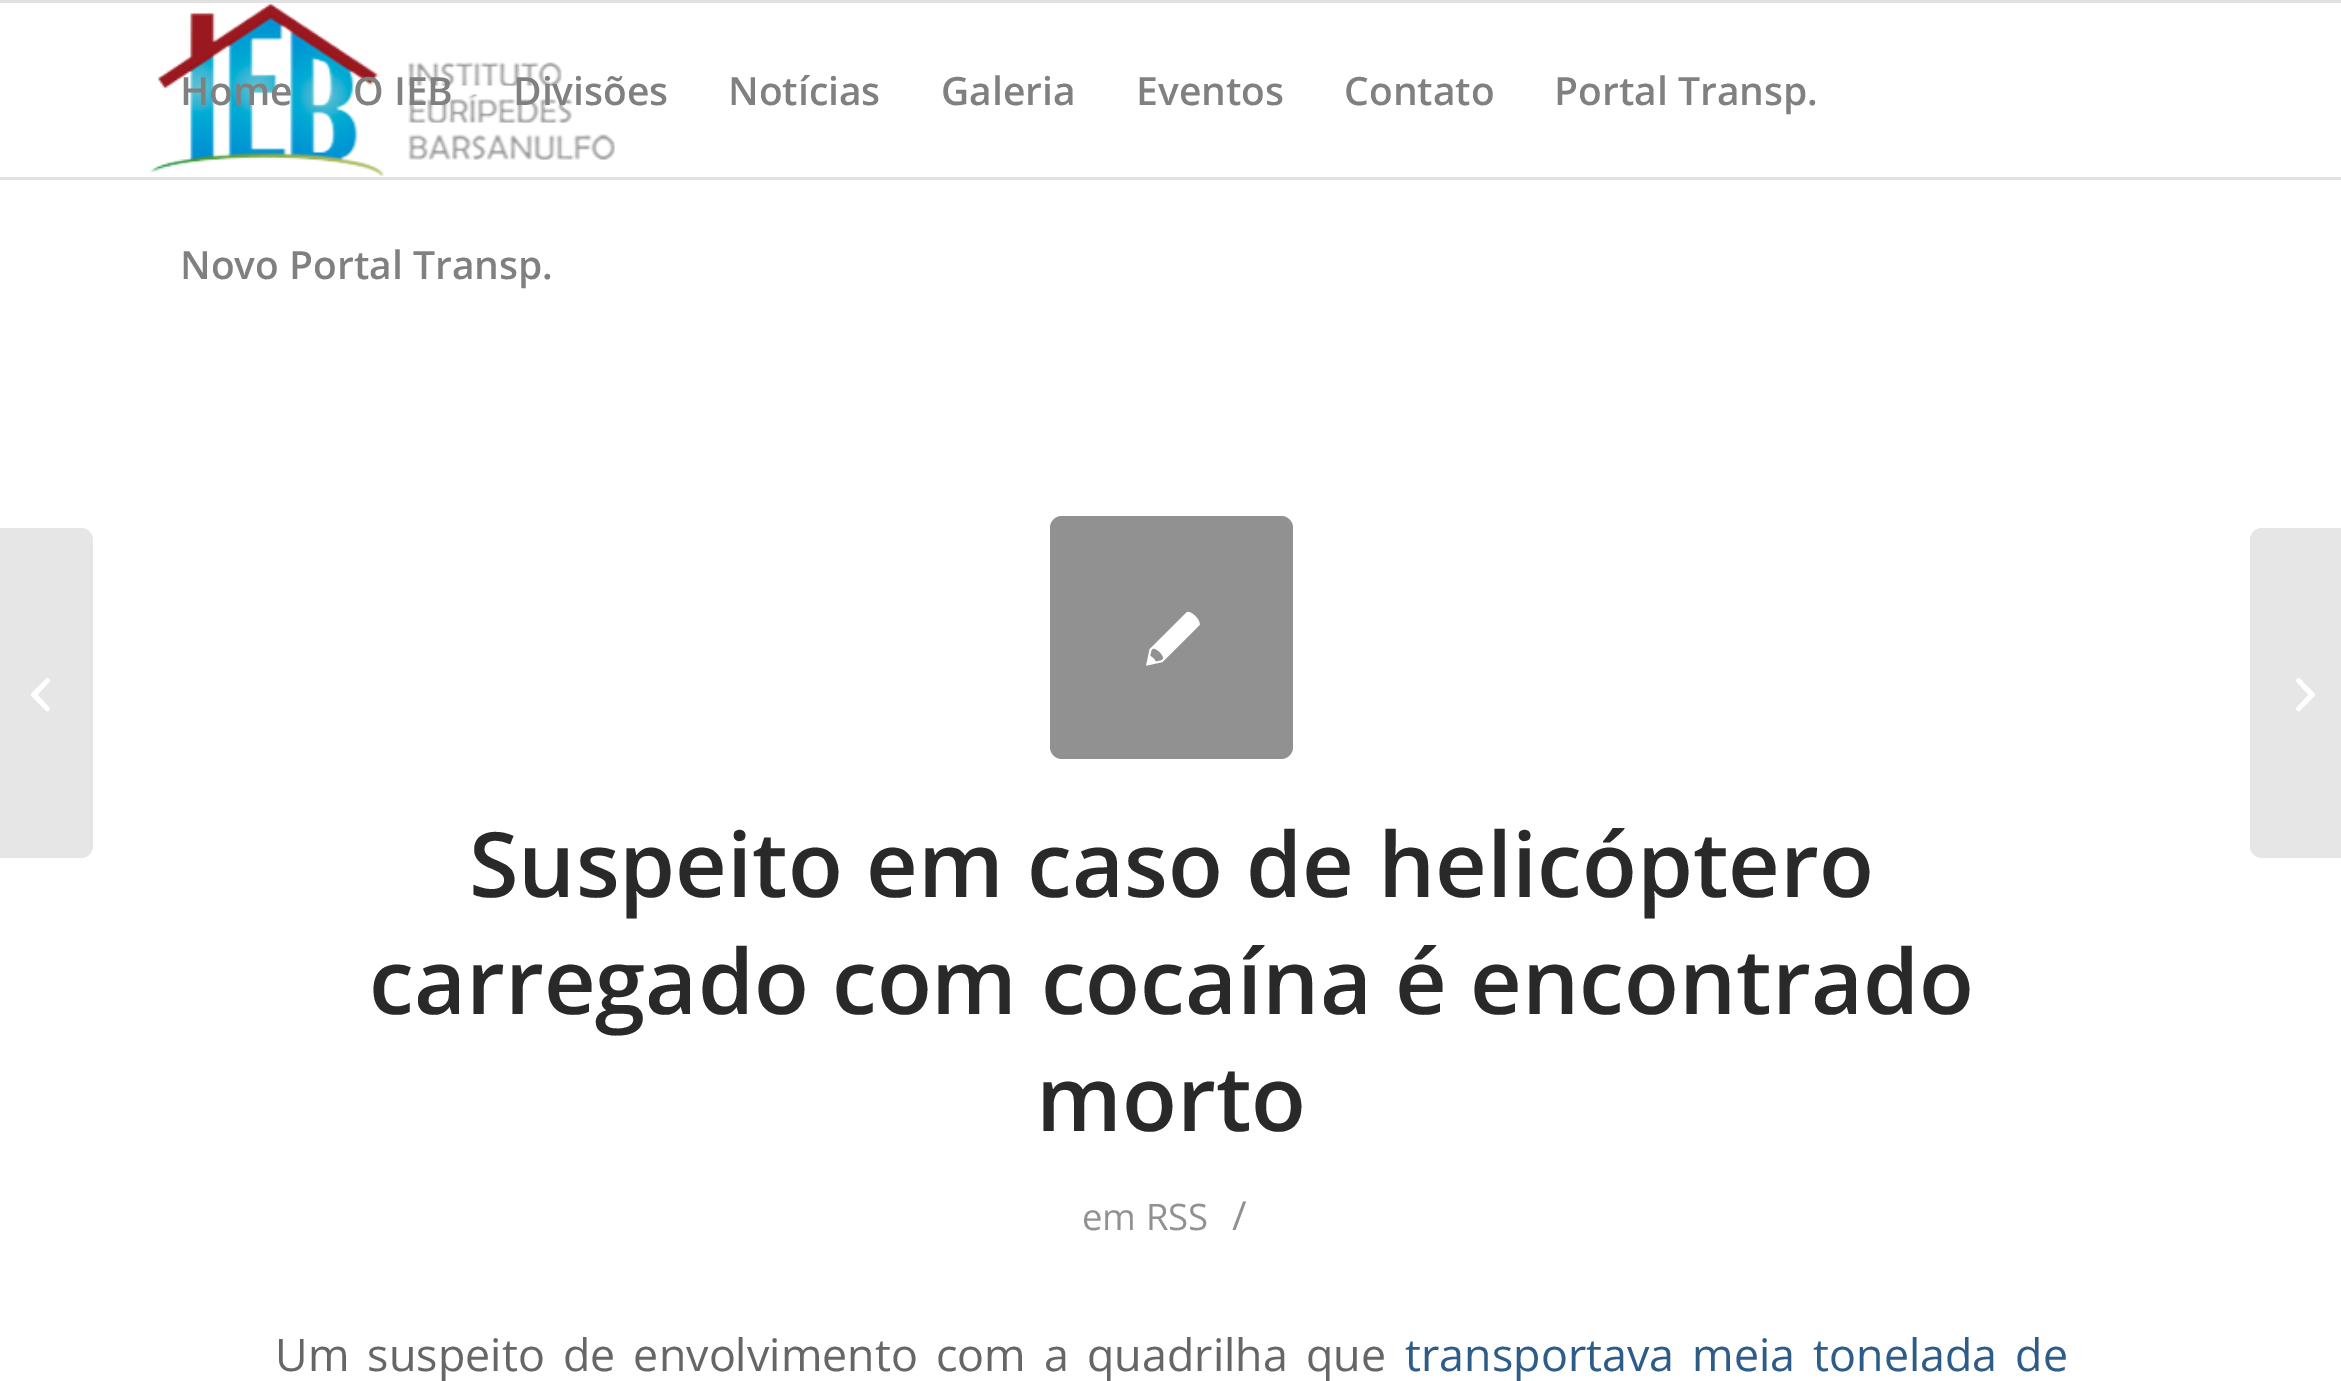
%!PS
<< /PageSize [2341 1381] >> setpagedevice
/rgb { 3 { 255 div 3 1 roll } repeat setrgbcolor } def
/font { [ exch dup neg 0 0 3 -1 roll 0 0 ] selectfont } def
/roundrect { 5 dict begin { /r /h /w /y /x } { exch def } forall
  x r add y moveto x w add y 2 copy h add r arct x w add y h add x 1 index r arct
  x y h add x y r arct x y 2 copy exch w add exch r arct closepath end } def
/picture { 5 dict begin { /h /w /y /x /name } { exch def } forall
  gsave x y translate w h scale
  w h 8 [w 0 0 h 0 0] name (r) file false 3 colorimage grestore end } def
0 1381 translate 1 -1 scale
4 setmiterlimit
255 255 255 rgb
0 0 2341 1381 rectfill
225 225 225 rgb
0 0 2341 3 rectfill
0 177 2341 3 rectfill
(img/1.rgb) 150 3 465 173 picture
230 230 230 rgb
0 528 moveto 81 528 lineto 87.5 528 93 533.5 93 540 curveto 93 846 lineto 93 852.5 87.5 858 81 858 curveto 0 858 lineto closepath fill
(img/2.rgb) 31 678 19 34 picture
2262 528 moveto 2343 528 lineto 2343 858 lineto 2262 858 lineto 2255.5 858 2250 852.5 2250 846 curveto 2250 540 lineto 2250 533.5 2255.5 528 2262 528 curveto closepath fill
(img/3.rgb) 2296 678 19 34 picture
145 145 145 rgb
1050 516 243 243 12 roundrect fill
(img/4.rgb) 1146 611 54 55 picture
/OpenSans-SemiBold 39 font
128 128 128 rgb
[
  [(Home) 180 105]
  [(O IEB) 353 105]
  [(Divisões) 513 105]
  [(Notícias) 728 105]
  [(Galeria) 941 105]
  [(Eventos) 1136 105]
  [(Contato) 1344 105]
  [(Portal Transp.) 1554 105]
  [(Novo Portal Transp.) 180 279]
] { aload pop moveto show } forall
/OpenSans-SemiBold 90 font
41 41 41 rgb
[
  [(Suspeito em caso de helicóptero) 469 897]
  [(carregado com cocaína é encontrado) 369 1014]
  [(morto) 1036 1131]
] { aload pop moveto show } forall
/OpenSans-Regular 36.5 font
145 145 145 rgb
1082 1230 moveto (em RSS) show
/OpenSans-Regular 40 font
1232 1230 moveto (/) show
/OpenSans-Regular 44.85 font
102 102 102 rgb
275 1371 moveto 6.5 0 32 (Um suspeito de envolvimento com a quadrilha que) widthshow
45 92 136 rgb
1405 1371 moveto (transportava) show
1692 1371 moveto 6.5 0 32 (meia tonelada de) widthshow
showpage
